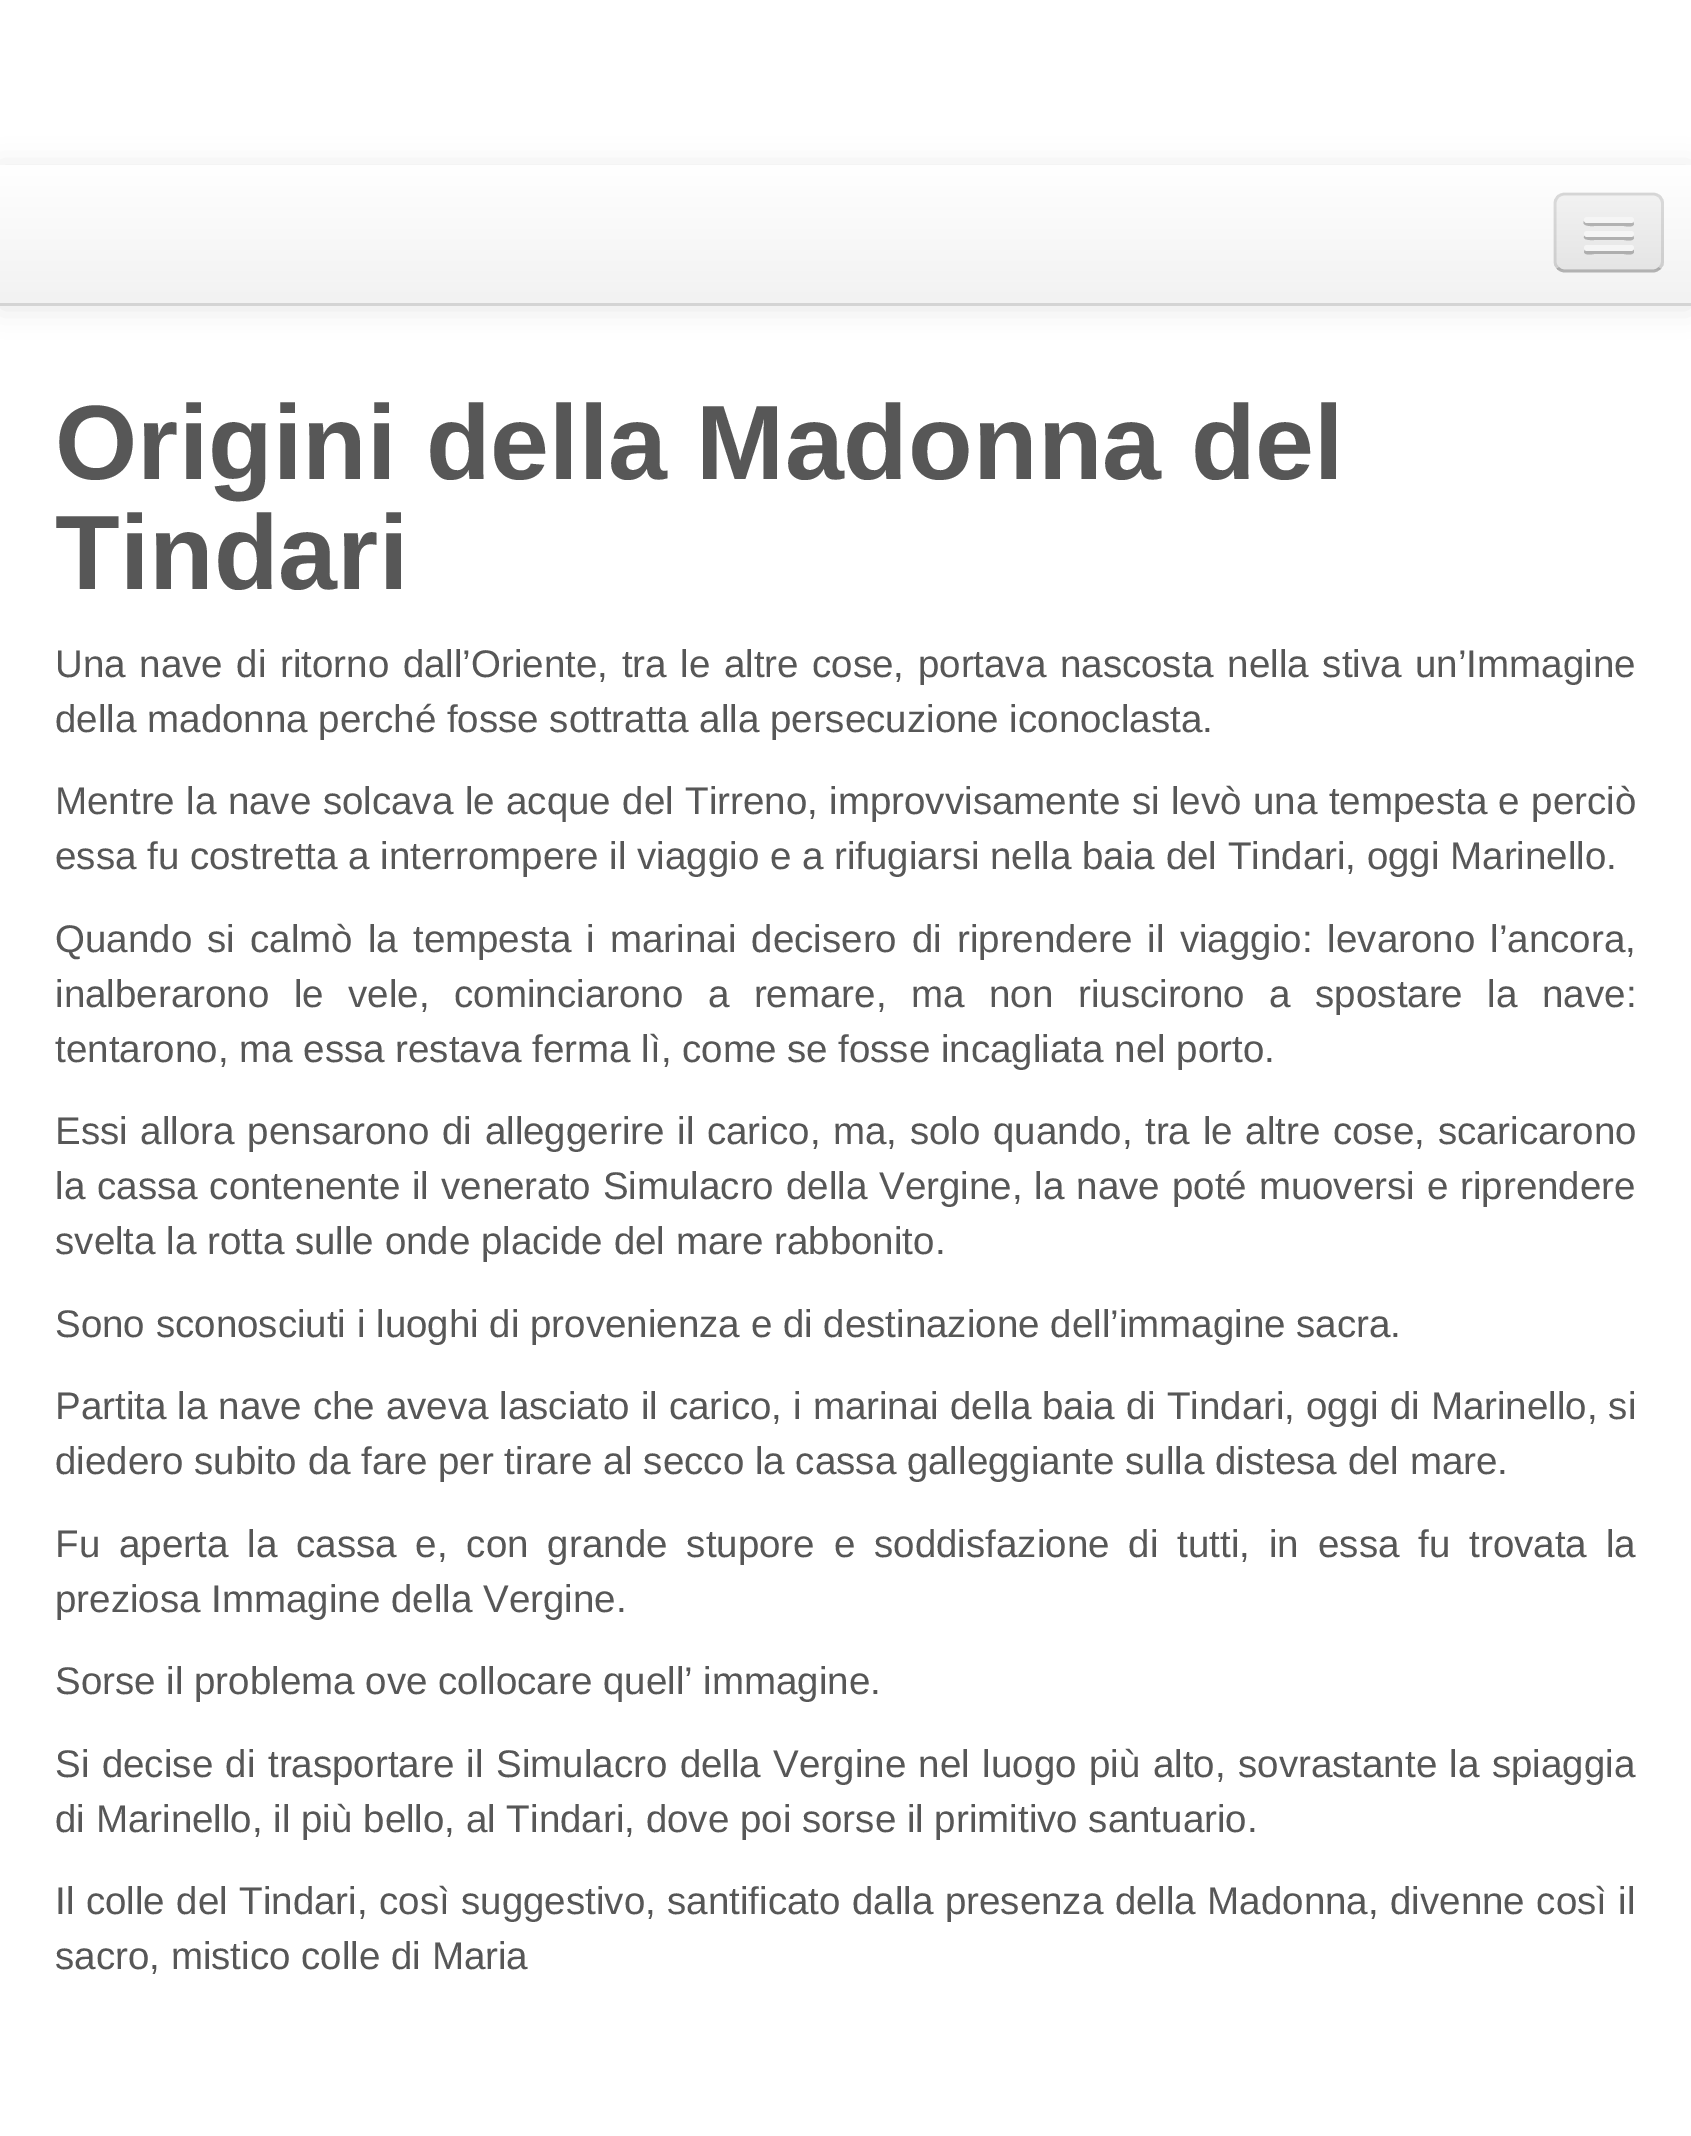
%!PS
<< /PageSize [1691 2136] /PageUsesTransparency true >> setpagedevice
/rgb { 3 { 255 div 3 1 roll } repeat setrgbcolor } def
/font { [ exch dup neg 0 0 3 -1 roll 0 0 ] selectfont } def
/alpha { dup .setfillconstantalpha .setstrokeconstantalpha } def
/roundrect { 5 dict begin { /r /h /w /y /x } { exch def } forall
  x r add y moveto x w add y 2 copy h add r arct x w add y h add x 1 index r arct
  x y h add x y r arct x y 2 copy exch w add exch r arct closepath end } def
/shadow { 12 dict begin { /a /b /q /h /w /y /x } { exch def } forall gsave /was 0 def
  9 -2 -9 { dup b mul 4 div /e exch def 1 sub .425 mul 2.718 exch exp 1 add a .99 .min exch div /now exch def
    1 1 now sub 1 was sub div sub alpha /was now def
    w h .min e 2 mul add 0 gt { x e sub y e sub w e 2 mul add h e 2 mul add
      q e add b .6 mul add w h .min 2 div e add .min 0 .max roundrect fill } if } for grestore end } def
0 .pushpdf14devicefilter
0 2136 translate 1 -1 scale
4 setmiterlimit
255 255 255 rgb
0 0 1691 2136 rectfill
0 0 0 rgb
0 168 1691 140 0 14 0.1 shadow
gsave 0 165 moveto 1691 165 lineto 1691 303 lineto 0 303 lineto closepath clip newpath
<< /ShadingType 2 /ColorSpace /DeviceRGB /Coords [846 165 846 303] /Extend [true true] /Function << /FunctionType 2 /Domain [0 1] /C0 [1 1 1] /C1 [0.949 0.949 0.949] /N 1 >> >> shfill grestore
212 212 212 rgb
0 303 1691 3 rectfill
237 237 237 rgb
1554 193 110 79 11 roundrect fill
gsave
1554 193 110 79 11 roundrect clip newpath
gsave 1554 195 moveto 1664 195 lineto 1664 270 lineto 1554 270 lineto closepath clip newpath
<< /ShadingType 2 /ColorSpace /DeviceRGB /Coords [1609 195 1609 270] /Extend [true true] /Function << /FunctionType 2 /Domain [0 1] /C0 [0.949 0.949 0.949] /C1 [0.898 0.898 0.898] /N 1 >> >> shfill grestore
grestore
0.25 alpha
0 0 0 rgb
2.8 setlinewidth
1659.5 268 moveto 1658 270 1655.5 271 1653 271 curveto 1565 271 lineto 1562 271 1559.5 270 1558 268 curveto stroke
0.1 alpha
1558 268 moveto 1556 266.5 1555 264 1555 261 curveto 1555 203.5 lineto 1555 201 1556 198.5 1558 196.5 curveto 1559.5 195 1562 194 1565 194 curveto 1653 194 lineto 1655.5 194 1658 195 1659.5 196.5 curveto 1661.5 198.5 1662.5 201 1662.5 203.5 curveto 1662.5 261 lineto 1662.5 264 1661.5 266.5 1659.5 268 curveto stroke
1 alpha
178 178 178 rgb
1584 221 moveto 1581 227 1594 226 1594 226 curveto 1624 226 lineto 1625 226 1633 228 1634 224 curveto 1633 221 lineto 1632 223 lineto 1586 223 lineto closepath fill
245 245 245 rgb
1584 217 50 6 3 roundrect fill
176 176 176 rgb
1585 235 moveto 1580 241 1594 240 1594 240 curveto 1624 240 lineto 1625 240 1633 242 1634 238 curveto 1633 235 lineto 1631 236 lineto 1586 236 lineto closepath fill
245 245 245 rgb
1584 231 50 6 3 roundrect fill
174 174 174 rgb
1585 249 moveto 1584 252 lineto 1585 256 1593 254 1594 254 curveto 1624 254 lineto 1625 254 1633 256 1634 252 curveto 1634 251 1634 250 1633 249 curveto 1631 250 lineto 1586 250 lineto closepath fill
245 245 245 rgb
1584 245 50 6 3 roundrect fill
/LiberationSans-Bold 105.9 font
87 87 87 rgb
55 479 moveto (Origini della Madonna del) show
55 589 moveto (Tindari) show
/LiberationSans-Regular 38.5 font
55 677 moveto 2.9 0 32 (Una nave di ritorno dall’Oriente, tra le altre cose, portava nascosta nella stiva un’Immagine) widthshow
55 732 moveto (della madonna perché fosse sottratta alla persecuzione iconoclasta.) show
55 814 moveto 0.75 0 32 (Mentre la nave solcava le acque del Tirreno, improvvisamente si levò una tempesta e perciò) widthshow
55 869 moveto (essa fu costretta a interrompere il viaggio e a rifugiarsi nella baia del Tindari, oggi Marinello.) show
55 952 moveto 4.4 0 32 (Quando si calmò la tempesta i marinai decisero di riprendere il viaggio: levarono l’ancora,) widthshow
55 1007 moveto 13.9 0 32 (inalberarono le vele, cominciarono a remare, ma non riuscirono a spostare la nave:) widthshow
55 1062 moveto (tentarono, ma essa restava ferma lì, come se fosse incagliata nel porto.) show
55 1144 moveto 2 0 32 (Essi allora pensarono di alleggerire il carico, ma, solo quando, tra le altre cose, scaricarono) widthshow
55 1199 moveto 1.25 0 32 (la cassa contenente il venerato Simulacro della Vergine, la nave poté muoversi e riprendere) widthshow
55 1254 moveto (svelta la rotta sulle onde placide del mare rabbonito.) show
55 1337 moveto (Sono sconosciuti i luoghi di provenienza e di destinazione dell’immagine sacra.) show
55 1419 moveto 0.25 0 32 (Partita la nave che aveva lasciato il carico, i marinai della baia di Tindari, oggi di Marinello, si) widthshow
55 1474 moveto (diedero subito da fare per tirare al secco la cassa galleggiante sulla distesa del mare.) show
55 1557 moveto 8.25 0 32 (Fu aperta la cassa e, con grande stupore e soddisfazione di tutti, in essa fu trovata la) widthshow
55 1612 moveto (preziosa Immagine della Vergine.) show
55 1694 moveto (Sorse il problema ove collocare quell’ immagine.) show
55 1777 moveto 1.75 0 32 (Si decise di trasportare il Simulacro della Vergine nel luogo più alto, sovrastante la spiaggia) widthshow
55 1832 moveto (di Marinello, il più bello, al Tindari, dove poi sorse il primitivo santuario.) show
55 1914 moveto 0.75 0 32 (Il colle del Tindari, così suggestivo, santificato dalla presenza della Madonna, divenne così il) widthshow
55 1969 moveto (sacro, mistico colle di Maria) show
.poppdf14devicefilter showpage
